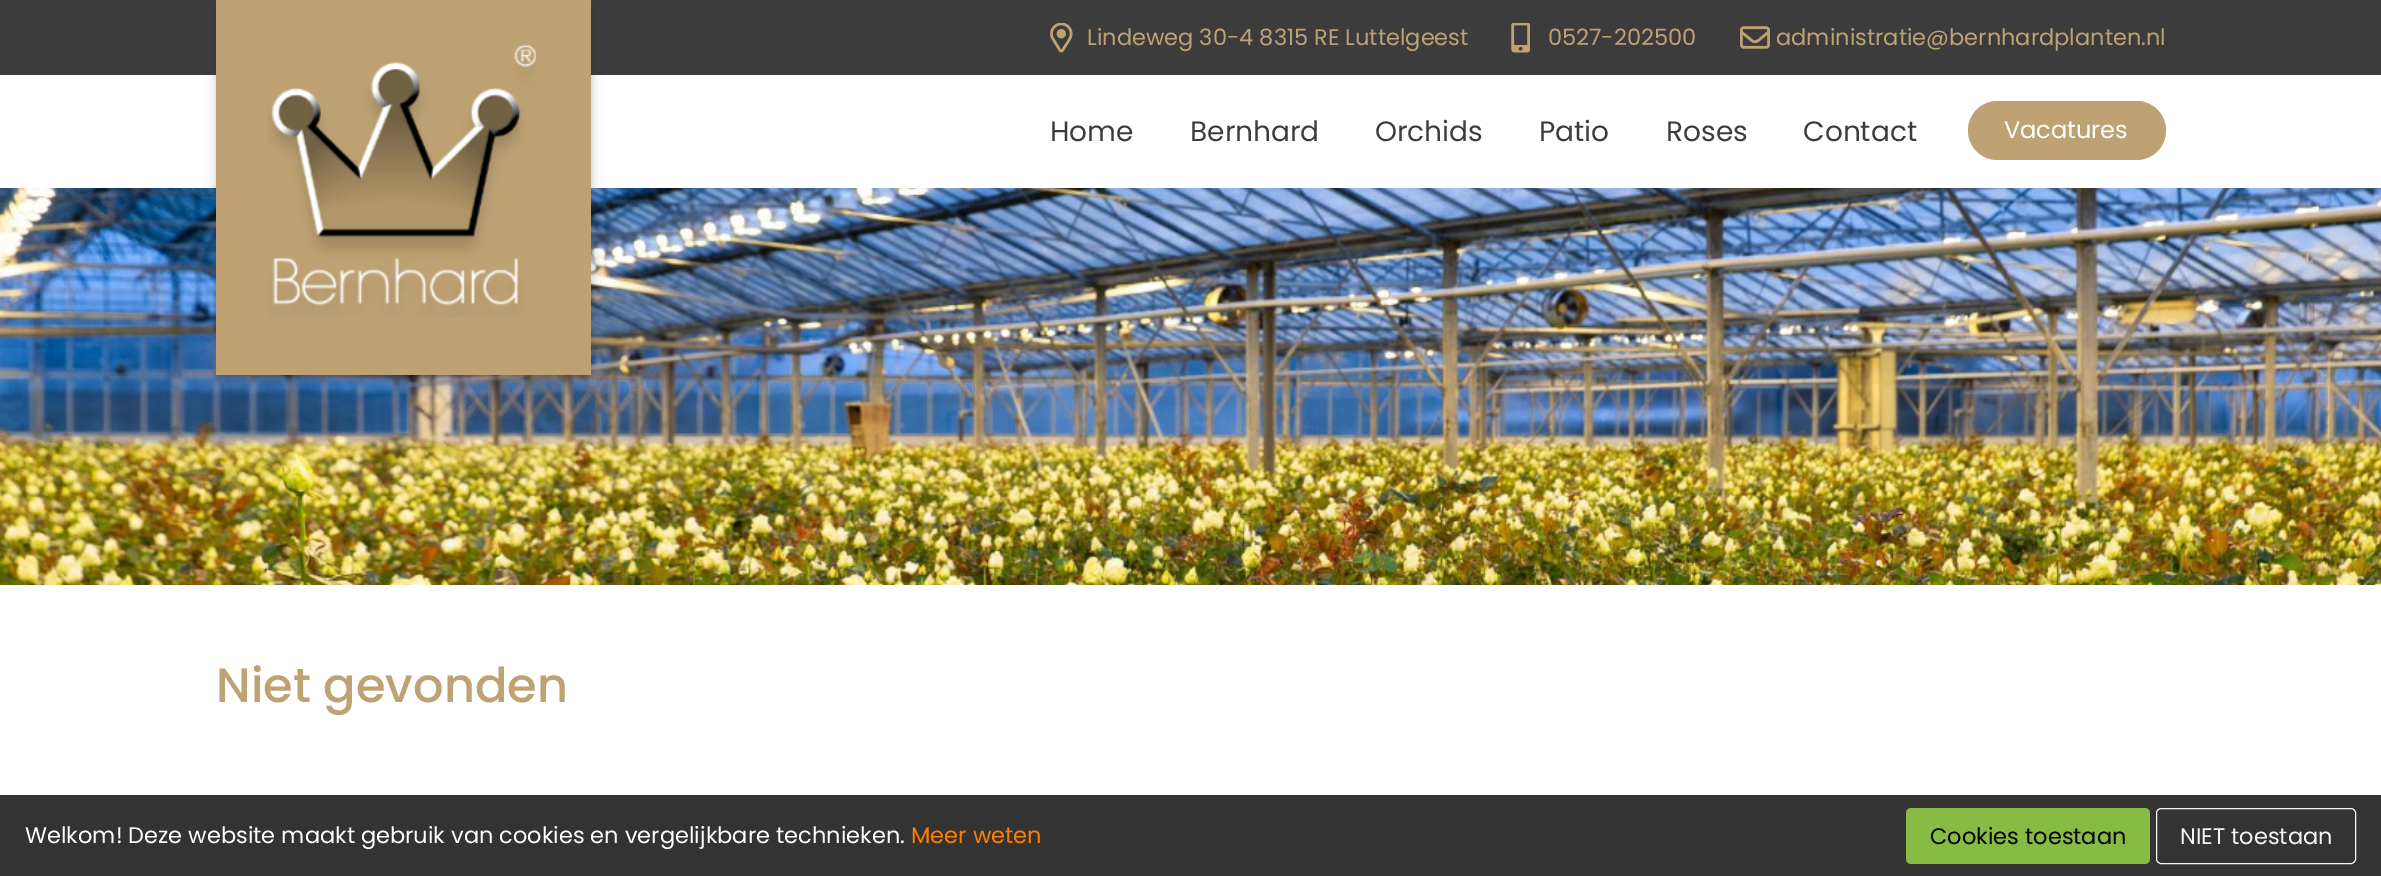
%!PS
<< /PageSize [2381 876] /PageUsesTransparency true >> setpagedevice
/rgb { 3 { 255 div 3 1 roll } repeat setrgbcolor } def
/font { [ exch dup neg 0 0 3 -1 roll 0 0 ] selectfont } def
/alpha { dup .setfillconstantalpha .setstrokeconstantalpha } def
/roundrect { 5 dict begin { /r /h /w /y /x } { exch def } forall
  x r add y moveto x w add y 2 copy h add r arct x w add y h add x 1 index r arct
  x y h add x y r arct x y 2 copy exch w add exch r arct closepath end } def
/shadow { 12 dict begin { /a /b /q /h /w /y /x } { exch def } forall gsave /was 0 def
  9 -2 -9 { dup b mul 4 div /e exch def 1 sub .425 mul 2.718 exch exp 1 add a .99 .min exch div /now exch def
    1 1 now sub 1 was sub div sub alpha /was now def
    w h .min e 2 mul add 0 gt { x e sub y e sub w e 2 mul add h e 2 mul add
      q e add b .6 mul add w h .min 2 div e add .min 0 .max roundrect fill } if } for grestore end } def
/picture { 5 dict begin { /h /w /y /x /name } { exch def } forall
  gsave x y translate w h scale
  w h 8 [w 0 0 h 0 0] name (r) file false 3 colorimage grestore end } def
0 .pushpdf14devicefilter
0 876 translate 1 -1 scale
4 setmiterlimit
255 255 255 rgb
0 0 2381 876 rectfill
60 60 60 rgb
0 0 2381 75 rectfill
(img/1.rgb) 1050 23 23 30 picture
(img/2.rgb) 1511 23 19 30 picture
(img/3.rgb) 1740 26 30 23 picture
(img/5.rgb) 0 188 2381 397 picture
0 0 0 rgb
220 8 368 367 0 4.5 0.3 shadow
50 50 93 rgb
219 10 370 370 0 7.5 0.25 shadow
190 162 116 rgb
216 0 375 375 rectfill
(img/4.rgb) 267 45 270 273 picture
1968 101 198 59 29.5 roundrect fill
51 51 51 rgb
0 795 2381 81 rectfill
136 187 68 rgb
1906 808 244 56 5 roundrect fill
245 245 245 rgb
2156.5 808.5 199 55 4.5 roundrect stroke
/Poppins-Regular 22.5 font
190 162 116 rgb
[
  [(Lindeweg 30-4 8315 RE Luttelgeest) 1087 45]
  [(0527-202500) 1548 45]
  [(administratie@bernhardplanten.nl) 1776 45]
] { aload pop moveto show } forall
/Poppins-Regular 28 font
60 60 60 rgb
[
  [(Home) 1050 141]
  [(Bernhard) 1190 141]
  [(Orchids) 1375 141]
  [(Patio) 1539 141]
  [(Roses) 1666 141]
  [(Contact) 1803 141]
] { aload pop moveto show } forall
/Poppins-Regular 24 font
255 255 255 rgb
2004 138 moveto (Vacatures) show
/Poppins-Medium 48 font
190 162 116 rgb
216 702 moveto (Niet gevonden) show
/Poppins-Regular 22.5 font
255 255 255 rgb
25 843 moveto (Welkom! Deze website maakt gebruik van cookies en vergelijkbare technieken.) show
255 126 0 rgb
911 843 moveto (Meer weten) show
0 0 0 rgb
1930 844 moveto (Cookies toestaan) show
245 245 245 rgb
2180 844 moveto (NIET toestaan) show
.poppdf14devicefilter showpage
